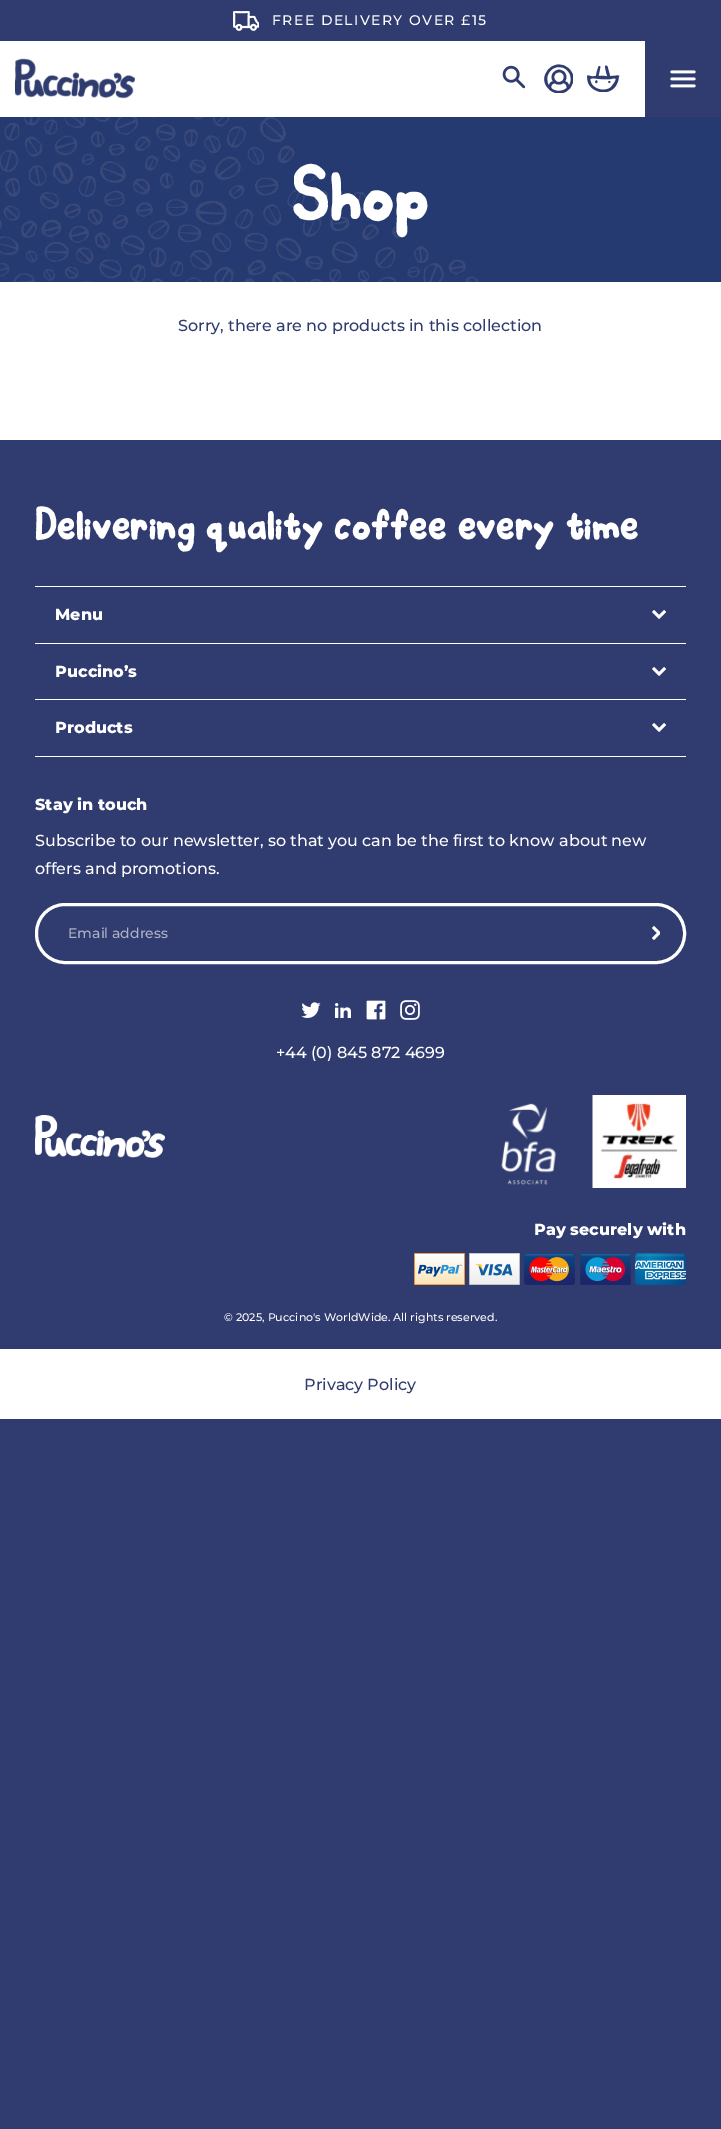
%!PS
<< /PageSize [721 2129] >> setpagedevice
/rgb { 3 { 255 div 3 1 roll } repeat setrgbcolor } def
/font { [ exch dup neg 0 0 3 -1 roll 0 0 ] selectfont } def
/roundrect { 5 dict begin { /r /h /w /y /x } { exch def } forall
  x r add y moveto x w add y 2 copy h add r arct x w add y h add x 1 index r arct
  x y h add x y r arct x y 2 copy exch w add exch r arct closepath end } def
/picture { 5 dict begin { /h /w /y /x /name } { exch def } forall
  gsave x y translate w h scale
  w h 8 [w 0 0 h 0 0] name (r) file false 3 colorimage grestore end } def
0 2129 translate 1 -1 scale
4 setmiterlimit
48 60 111 rgb
0 0 721 2129 rectfill
255 255 255 rgb
0 282 721 1137 rectfill
0 41 645 76 rectfill
(img/1.rgb) 233 11 26 20 picture
(img/2.rgb) 15 58 120 41 picture
(img/3.rgb) 502 65 24 24 picture
(img/4.rgb) 544 64 29 29 picture
(img/5.rgb) 587 65 33 27 picture
(img/6.rgb) 670 70 26 18 picture
(img/7.rgb) 0 117 721 165 picture
[
  [0 440 721 909 48 60 111]
  [35 586 651 1 255 255 255]
  [35 643 651 1 255 255 255]
] { aload pop rgb rectfill } forall
(img/8.rgb) 652 610 14 9 picture
35 699 651 1 rectfill
(img/8.rgb) 652 667 14 9 picture
35 756 651 1 rectfill
(img/8.rgb) 652 723 14 9 picture
3 setlinewidth
36.5 904.5 648 58 28.5 roundrect stroke
(img/9.rgb) 652 926 8 14 picture
(img/10.rgb) 301 1002 20 16 picture
(img/11.rgb) 335 1003 16 15 picture
(img/12.rgb) 366 1000 20 20 picture
(img/13.rgb) 400 1000 20 20 picture
(img/14.rgb) 35 1115 130 43 picture
(img/15.rgb) 501 1095 185 93 picture
(img/16.rgb) 414 1253 51 32 picture
(img/17.rgb) 469 1253 51 32 picture
(img/18.rgb) 524 1253 51 32 picture
(img/19.rgb) 580 1253 51 32 picture
(img/20.rgb) 635 1253 51 32 picture
/Montserrat-Medium 14 font
272 25 moveto 1.4 0 (FREE DELIVERY OVER £15) ashow
/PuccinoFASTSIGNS-Regular 48 font
292 218 moveto (Shop) show
/Montserrat-Medium 16 font
48 60 111 rgb
178 331 moveto (Sorry, there are no products in this collection) show
/PuccinoFASTSIGNS-Regular 28 font
255 255 255 rgb
35 538 moveto (Delivering quality coffee every time) show
/Montserrat-ExtraBold 16 font
[
  [(Menu) 55 620]
  [(Puccino’s) 55 677]
  [(Products) 55 733]
  [(Stay in touch) 35 810]
] { aload pop moveto show } forall
/Montserrat-Medium 16 font
35 846 moveto (Subscribe to our newsletter, so that you can be the first to know about new) show
35 874 moveto (offers and promotions.) show
/Montserrat-Medium 14 font
172 177 197 rgb
68 938 moveto (Email address) show
/Montserrat-Medium 16 font
255 255 255 rgb
276 1058 moveto (+44 \(0\) 845 872 4699) show
/Montserrat-ExtraBold 16 font
534 1235 moveto (Pay securely with) show
/Montserrat-Medium 11 font
224 1321 moveto (© 2025, Puccino's WorldWide. All rights reserved.) show
/Montserrat-Medium 16 font
48 60 111 rgb
304 1390 moveto (Privacy Policy) show
showpage
